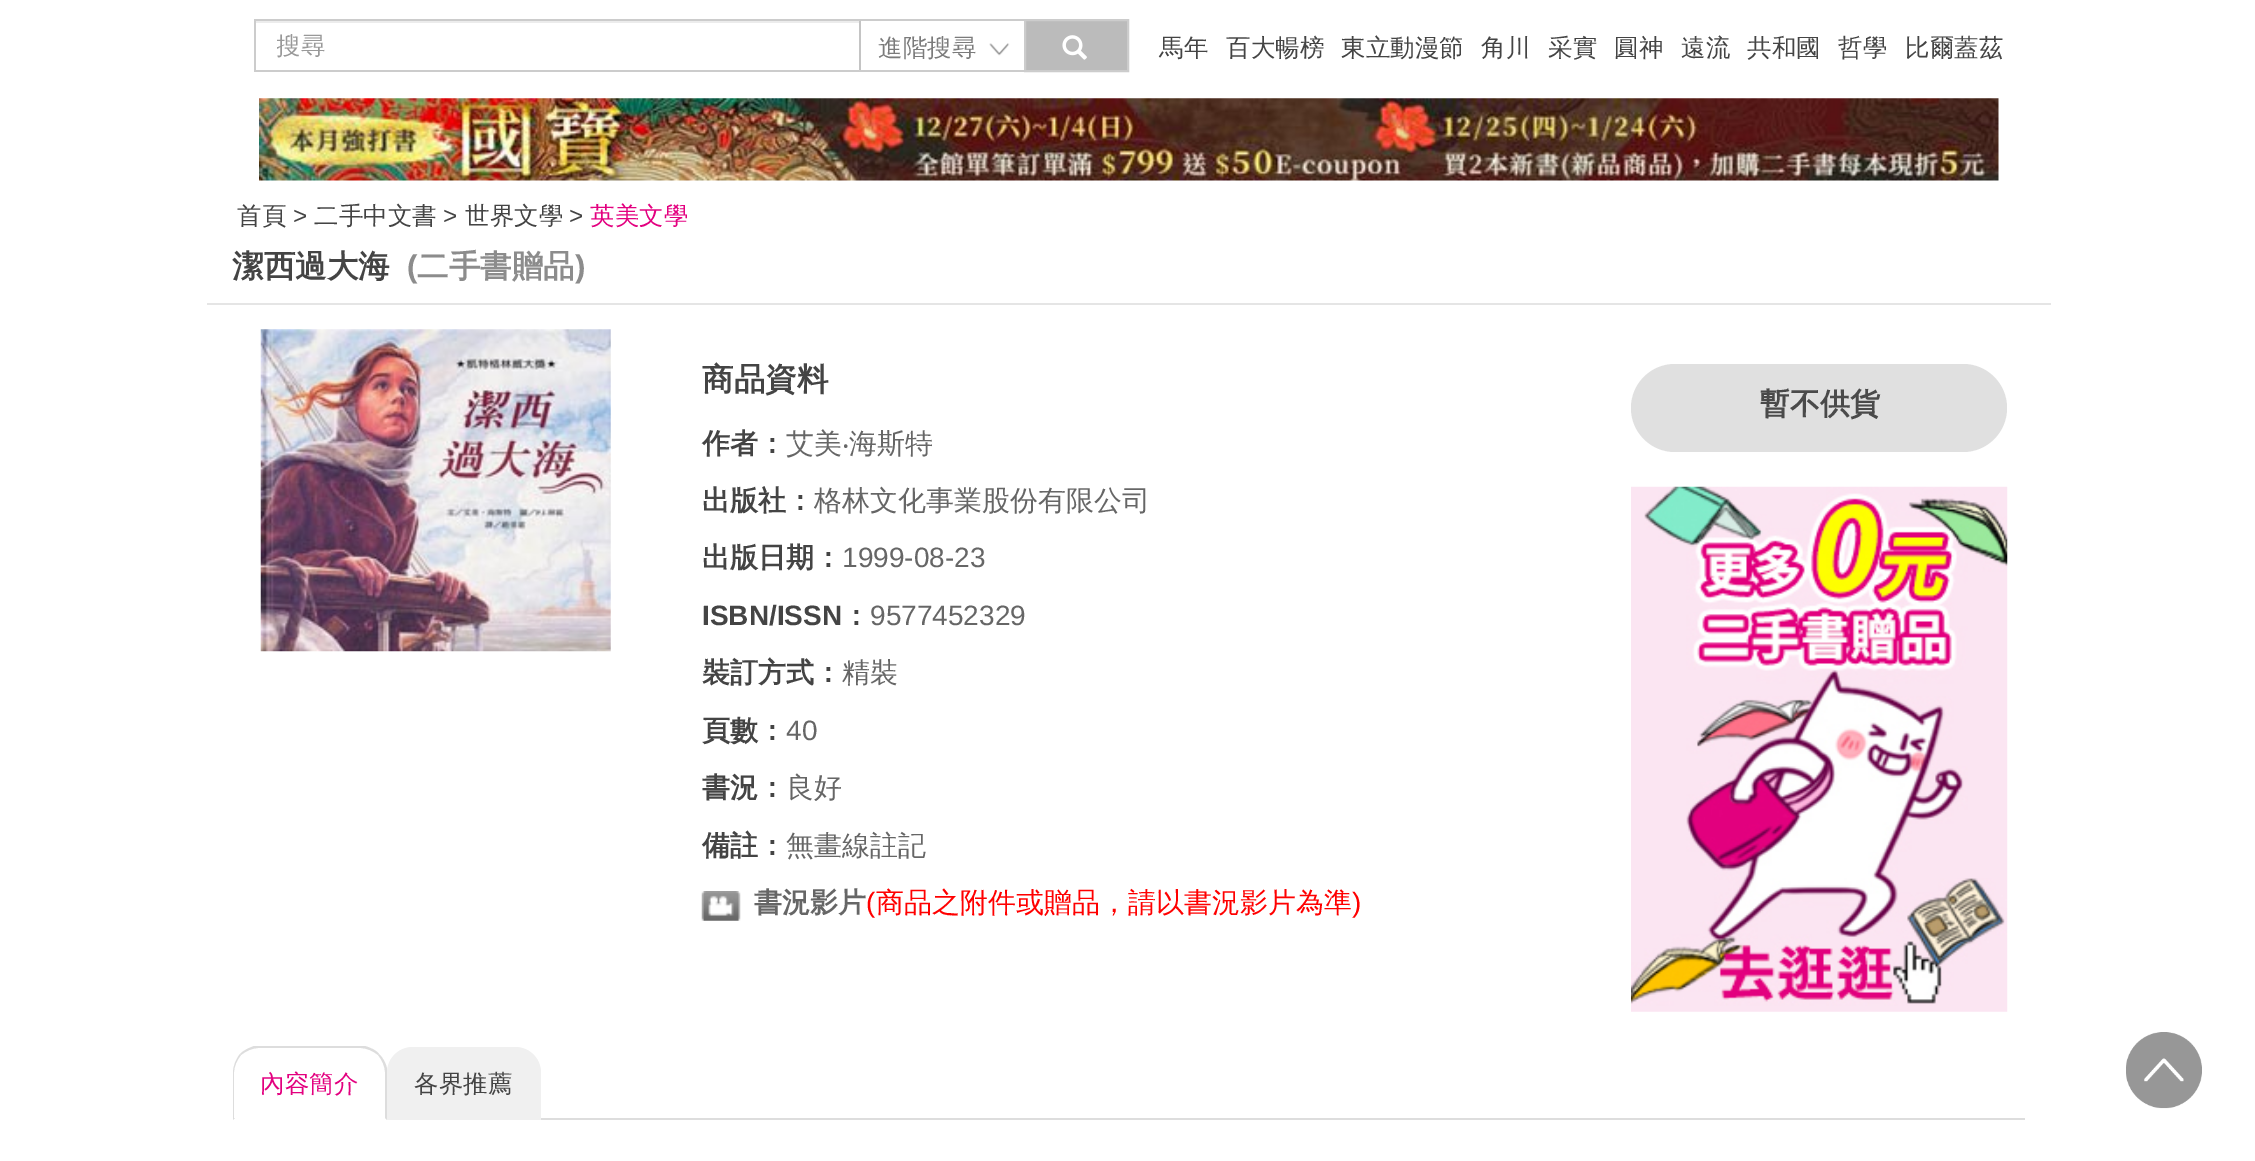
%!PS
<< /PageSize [2255 1161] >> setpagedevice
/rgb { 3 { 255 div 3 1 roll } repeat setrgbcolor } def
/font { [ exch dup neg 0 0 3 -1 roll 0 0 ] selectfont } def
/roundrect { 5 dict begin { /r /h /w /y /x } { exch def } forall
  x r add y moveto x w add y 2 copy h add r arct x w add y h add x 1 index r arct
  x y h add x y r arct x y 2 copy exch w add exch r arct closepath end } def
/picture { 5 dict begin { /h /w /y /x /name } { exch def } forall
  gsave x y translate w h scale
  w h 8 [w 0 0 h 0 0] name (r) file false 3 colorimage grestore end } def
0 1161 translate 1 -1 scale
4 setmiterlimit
255 255 255 rgb
0 0 2255 1161 rectfill
236 236 236 rgb
256 21 603 2 rectfill
204 204 204 rgb
254 19 moveto 863 19 lineto 859 21 lineto 256 21 lineto closepath fill
196 196 196 rgb
863 19 moveto 863 72 lineto 859 70 lineto 859 21 lineto closepath fill
204 204 204 rgb
863 72 moveto 254 72 lineto 256 70 lineto 859 70 lineto closepath fill
[
  [254 19 2 53 204 204 204]
  [861 21 2 49 255 255 255]
  [861 19 165 2 204 204 204]
  [861 70 165 2 204 204 204]
] { aload pop rgb rectfill } forall
(img/1.rgb) 989 43 21 13 picture
187 187 187 rgb
1025 20 moveto 1128 20 lineto 1128 71 lineto 1025 71 lineto closepath gsave fill grestore
204 204 204 rgb
2 setlinewidth
stroke
(img/2.rgb) 1062 35 25 25 picture
(img/3.rgb) 259 98 1740 83 picture
229 229 229 rgb
207 303 1844 2 rectfill
(img/4.rgb) 260 329 351 323 picture
(img/5.rgb) 701 891 40 30 picture
224 224 224 rgb
1631 364 376 88 44 roundrect fill
(img/6.rgb) 1631 486 377 526 picture
221 221 221 rgb
541 1118 1484 2 rectfill
259 1048 moveto 252 1048 246 1051 241 1055 curveto 240 1054 lineto 244 1050 249 1048 254 1046 curveto 365 1046 lineto 371 1048 376 1050 379 1054 curveto 378 1055 lineto 373 1051 367 1048 360 1048 curveto closepath fill
387 1069 moveto 387 1120 lineto 385 1118 lineto 385 1073 lineto 385 1066 382 1060 378 1055 curveto 379 1054 lineto 383 1058 386 1063 387 1069 curveto closepath fill
233 1120 moveto 233 1073 lineto 233 1066 236 1059 240 1054 curveto 241 1055 lineto 237 1060 234 1066 234 1073 curveto 234 1118 lineto 235 1118 lineto closepath fill
240 240 240 rgb
413 1047 moveto 515 1047 lineto 529.5 1047 541 1058.5 541 1073 curveto 541 1120 lineto 387 1120 lineto 387 1073 lineto 387 1058.5 398.5 1047 413 1047 curveto closepath fill
(img/7.rgb) 2126 1032 76 77 picture
gsave
277 32 554 31 rectclip
/WenQuanYiZenHei-Medium 24.5 font
153 153 153 rgb
276 54 moveto (搜尋) show
grestore
/WenQuanYiZenHei-Medium 24.5 font
123 123 123 rgb
878 56 moveto (進階搜尋) show
68 68 68 rgb
[
  [(馬年) 1159 56]
  [(百大暢榜) 1226 56]
  [(東立動漫節) 1341 56]
  [(角川) 1481 56]
  [(采實) 1548 56]
  [(圓神) 1614 56]
  [(遠流) 1681 56]
  [(共和國) 1747 56]
  [(哲學) 1838 56]
  [(比爾蓋茲) 1905 56]
  [(首頁) 237 224]
] { aload pop moveto show } forall
/LiberationSans-Regular 24.5 font
293 224 moveto (>) show
/WenQuanYiZenHei-Medium 24.5 font
314 224 moveto (二手中文書) show
/LiberationSans-Regular 24.5 font
443 224 moveto (>) show
/WenQuanYiZenHei-Medium 24.5 font
465 224 moveto (世界文學) show
/LiberationSans-Regular 24.5 font
569 224 moveto (>) show
/WenQuanYiZenHei-Medium 24.5 font
227 0 127 rgb
590 224 moveto (英美文學) show
/WenQuanYiZenHei-Bold 31.5 font
68 68 68 rgb
232 277 moveto (潔西過大海) show
/LiberationSans-Bold 31.5 font
140 140 140 rgb
407 277 moveto (\() show
/WenQuanYiZenHei-Bold 31.5 font
417 277 moveto (二手書贈品) show
/LiberationSans-Bold 31.5 font
575 277 moveto (\)) show
/WenQuanYiZenHei-Bold 31.5 font
68 68 68 rgb
702 390 moveto (商品資料) show
/WenQuanYiZenHei-Bold 28 font
702 453 moveto (作者：) show
/WenQuanYiZenHei-Medium 28 font
102 102 102 rgb
786 453 moveto (艾美) show
/NotoSans-Regular 28 font
842 453 moveto (‧) show
/WenQuanYiZenHei-Medium 28 font
849 453 moveto (海斯特) show
/WenQuanYiZenHei-Bold 28 font
68 68 68 rgb
702 510 moveto (出版社：) show
/WenQuanYiZenHei-Medium 28 font
102 102 102 rgb
814 510 moveto (格林文化事業股份有限公司) show
/WenQuanYiZenHei-Bold 28 font
68 68 68 rgb
702 567 moveto (出版日期：) show
/LiberationSans-Regular 28 font
102 102 102 rgb
842 567 moveto (1999-08-23) show
/LiberationSans-Bold 28 font
68 68 68 rgb
702 625 moveto (ISBN/ISSN) show
/WenQuanYiZenHei-Bold 28 font
842 625 moveto (：) show
/LiberationSans-Regular 28 font
102 102 102 rgb
870 625 moveto (9577452329) show
/WenQuanYiZenHei-Bold 28 font
68 68 68 rgb
702 682 moveto (裝訂方式：) show
/WenQuanYiZenHei-Medium 28 font
102 102 102 rgb
842 682 moveto (精裝) show
/WenQuanYiZenHei-Bold 28 font
68 68 68 rgb
702 740 moveto (頁數：) show
/LiberationSans-Regular 28 font
102 102 102 rgb
786 740 moveto (40) show
/WenQuanYiZenHei-Bold 28 font
68 68 68 rgb
702 797 moveto (書況：) show
/WenQuanYiZenHei-Medium 28 font
102 102 102 rgb
786 797 moveto (良好) show
/WenQuanYiZenHei-Bold 28 font
68 68 68 rgb
702 855 moveto (備註：) show
/WenQuanYiZenHei-Medium 28 font
102 102 102 rgb
786 855 moveto (無畫線註記) show
/WenQuanYiZenHei-Bold 28 font
754 912 moveto (書況影片) show
/LiberationSans-Regular 28 font
255 0 0 rgb
866 912 moveto (\() show
/WenQuanYiZenHei-Medium 28 font
876 912 moveto (商品之附件或贈品，請以書況影片為準) show
/LiberationSans-Regular 28 font
1352 912 moveto (\)) show
/WenQuanYiZenHei-Bold 30 font
74 74 74 rgb
1760 414 moveto (暫不供貨) show
/WenQuanYiZenHei-Medium 24.5 font
227 0 127 rgb
260 1092 moveto (內容簡介) show
68 68 68 rgb
414 1092 moveto (各界推薦) show
showpage
